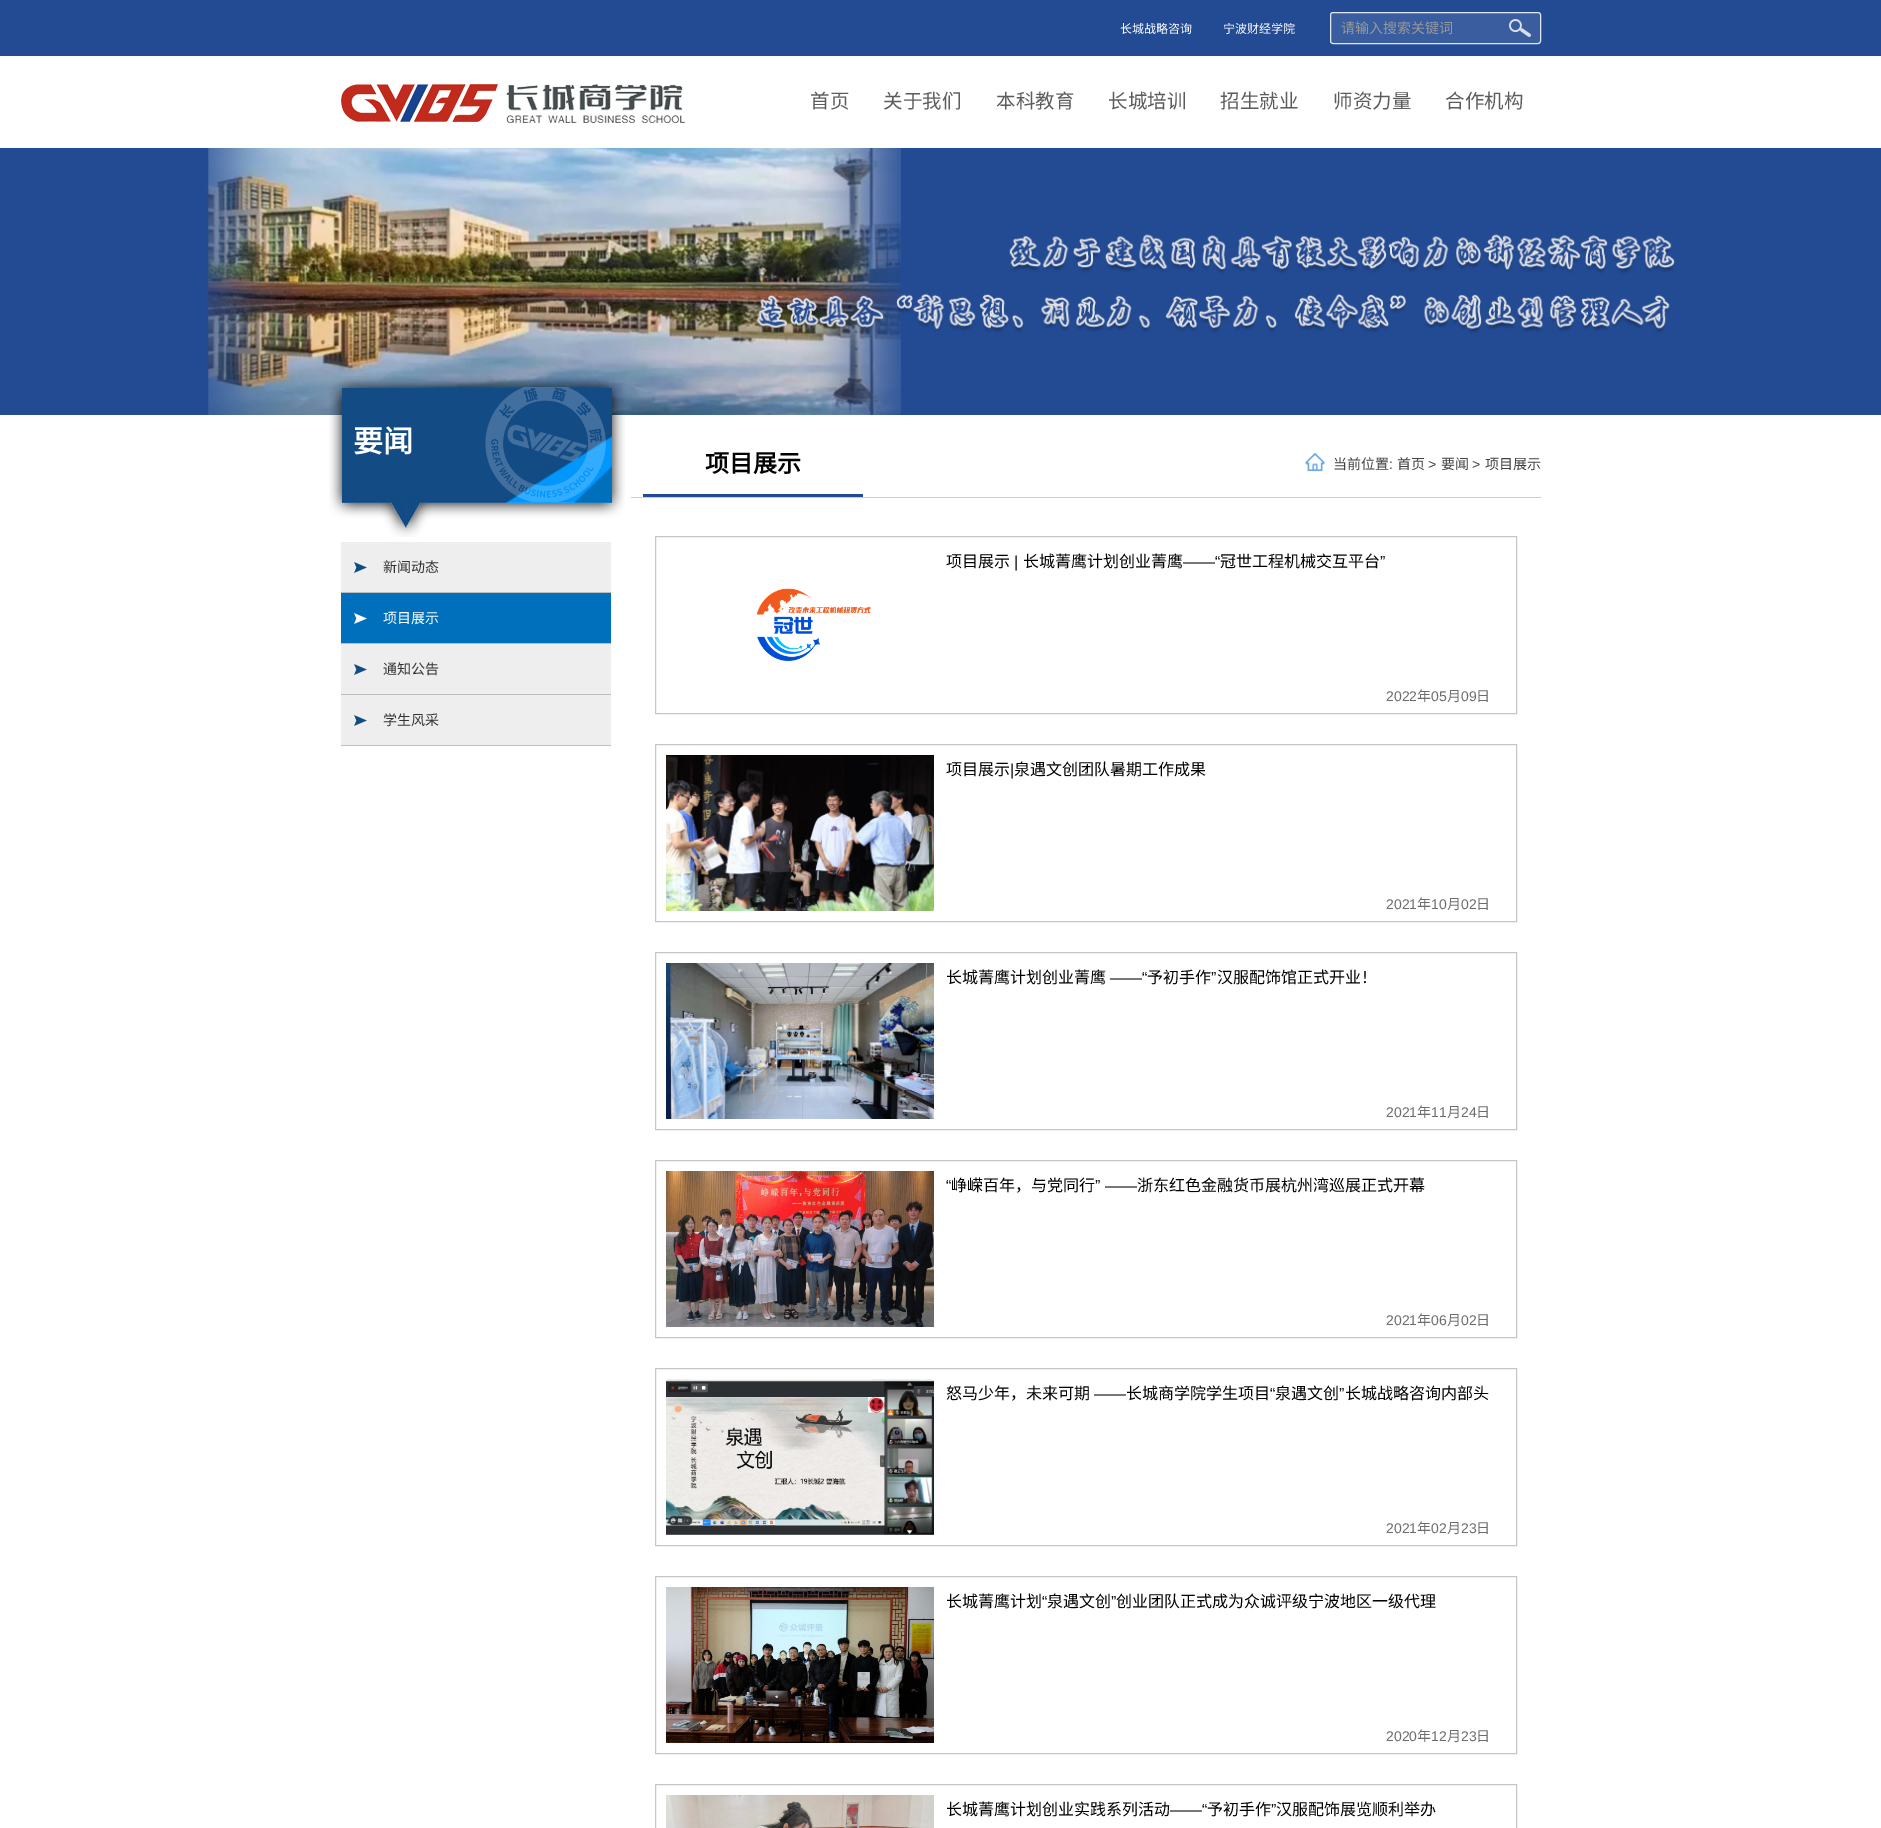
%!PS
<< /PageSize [1881 1828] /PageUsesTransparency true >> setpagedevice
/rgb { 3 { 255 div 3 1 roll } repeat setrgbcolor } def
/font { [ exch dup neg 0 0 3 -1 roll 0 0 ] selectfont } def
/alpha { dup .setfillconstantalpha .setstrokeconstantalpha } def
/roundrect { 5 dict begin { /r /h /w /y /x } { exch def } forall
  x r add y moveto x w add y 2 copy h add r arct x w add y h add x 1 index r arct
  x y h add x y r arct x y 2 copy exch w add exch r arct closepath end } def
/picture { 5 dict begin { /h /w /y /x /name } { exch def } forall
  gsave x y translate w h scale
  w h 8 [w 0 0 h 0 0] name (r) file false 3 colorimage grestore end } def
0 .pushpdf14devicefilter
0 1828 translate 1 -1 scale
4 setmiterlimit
255 255 255 rgb
0 0 1881 1828 rectfill
35 75 148 rgb
0 0 1881 56 rectfill
57 93 159 rgb
1330 12 211 32 3 roundrect fill
0.85 alpha
255 255 255 rgb
1330.5 12.5 210 31 2.5 roundrect stroke
1 alpha
(img/1.rgb) 1509 19 22 18 picture
(img/2.rgb) 341 84 344 39 picture
(img/3.rgb) 0 148 1881 267 picture
(img/4.rgb) 329 376 296 161 picture
238 238 238 rgb
341 542 270 50 rectfill
(img/5.rgb) 354 562 13 11 picture
190 190 190 rgb
341 592 270 1 rectfill
0 112 188 rgb
341 593 270 50 rectfill
(img/6.rgb) 354 613 13 11 picture
190 190 190 rgb
341 643 270 1 rectfill
238 238 238 rgb
341 644 270 50 rectfill
(img/5.rgb) 354 664 13 11 picture
190 190 190 rgb
341 694 270 1 rectfill
238 238 238 rgb
341 695 270 50 rectfill
(img/5.rgb) 354 715 13 11 picture
[
  [341 745 270 1 190 190 190]
  [631 497 910 1 206 206 206]
  [643 494 220 3 35 75 148]
] { aload pop rgb rectfill } forall
(img/7.rgb) 1305 452 21 20 picture
198 198 198 rgb
655.5 536.5 861 177 rectstroke
(img/8.rgb) 756 588 115 73 picture
655.5 744.5 861 177 rectstroke
(img/9.rgb) 666 755 268 156 picture
655.5 952.5 861 177 rectstroke
(img/10.rgb) 666 963 268 156 picture
655.5 1160.5 861 177 rectstroke
(img/11.rgb) 666 1171 268 156 picture
655.5 1368.5 861 177 rectstroke
(img/12.rgb) 666 1379 268 156 picture
655.5 1576.5 861 177 rectstroke
(img/13.rgb) 666 1587 268 156 picture
655.5 1784.5 861 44 rectstroke
(img/14.rgb) 666 1795 268 33 picture
/NotoSansCJKSC-Regular 12 font
255 255 255 rgb
1120 33 moveto (长城战略咨询) show
1223 33 moveto (宁波财经学院) show
/NotoSansCJKSC-Regular 14 font
153 153 153 rgb
1341 33 moveto (请输入搜索关键词) show
/NotoSansCJKSC-Regular 19.5 font
92 92 92 rgb
[
  [(首页) 810 108]
  [(关于我们) 883 108]
  [(本科教育) 996 108]
  [(长城培训) 1108 108]
  [(招生就业) 1220 108]
  [(师资力量) 1333 108]
  [(合作机构) 1445 108]
] { aload pop moveto show } forall
/NotoSansCJKSC-Bold 30 font
255 255 255 rgb
353 452 moveto (要闻) show
/NotoSansCJKSC-Regular 14 font
51 51 51 rgb
383 572 moveto (新闻动态) show
255 255 255 rgb
383 623 moveto (项目展示) show
51 51 51 rgb
383 674 moveto (通知公告) show
383 725 moveto (学生风采) show
/NotoSansCJKSC-Bold 24 font
0 0 0 rgb
705 472 moveto (项目展示) show
/NotoSansCJKSC-Regular 14 font
66 64 64 rgb
1333 469 moveto (当前位置) show
/LiberationSans-Regular 14 font
1389 469 moveto (:) show
/NotoSansCJKSC-Regular 14 font
1397 469 moveto (首页) show
/LiberationSans-Regular 14 font
1428 469 moveto (>) show
/NotoSansCJKSC-Regular 14 font
1441 469 moveto (要闻) show
/LiberationSans-Regular 14 font
1472 469 moveto (>) show
/NotoSansCJKSC-Regular 14 font
1485 469 moveto (项目展示) show
/NotoSansCJKSC-Regular 16 font
0 0 0 rgb
946 567 moveto (项目展示) show
/LiberationSans-Regular 16 font
1014 567 moveto (|) show
/NotoSansCJKSC-Regular 16 font
1023 567 moveto (长城菁鹰计划创业菁鹰) show
/LiberationSans-Regular 16 font
1183 567 moveto (——“) show
/NotoSansCJKSC-Regular 16 font
1220 567 moveto (冠世工程机械交互平台) show
/LiberationSans-Regular 16 font
1380 567 moveto (”) show
/LiberationSans-Regular 14 font
108 108 108 rgb
1386 701 moveto (2022) show
/NotoSansCJKSC-Regular 14 font
1417 701 moveto (年) show
/LiberationSans-Regular 14 font
1431 701 moveto (05) show
/NotoSansCJKSC-Regular 14 font
1447 701 moveto (月) show
/LiberationSans-Regular 14 font
1461 701 moveto (09) show
/NotoSansCJKSC-Regular 14 font
1476 701 moveto (日) show
/NotoSansCJKSC-Regular 16 font
0 0 0 rgb
946 775 moveto (项目展示) show
/LiberationSans-Regular 16 font
1010 775 moveto (|) show
/NotoSansCJKSC-Regular 16 font
1014 775 moveto (泉遇文创团队暑期工作成果) show
/LiberationSans-Regular 14 font
108 108 108 rgb
1386 909 moveto (2021) show
/NotoSansCJKSC-Regular 14 font
1417 909 moveto (年) show
/LiberationSans-Regular 14 font
1431 909 moveto (10) show
/NotoSansCJKSC-Regular 14 font
1447 909 moveto (月) show
/LiberationSans-Regular 14 font
1461 909 moveto (02) show
/NotoSansCJKSC-Regular 14 font
1476 909 moveto (日) show
/NotoSansCJKSC-Regular 16 font
0 0 0 rgb
946 983 moveto (长城菁鹰计划创业菁鹰) show
/LiberationSans-Regular 16 font
1110 983 moveto (——“) show
/NotoSansCJKSC-Regular 16 font
1147 983 moveto (予初手作) show
/LiberationSans-Regular 16 font
1211 983 moveto (”) show
/NotoSansCJKSC-Regular 16 font
1217 983 moveto (汉服配饰馆正式开业！) show
/LiberationSans-Regular 14 font
108 108 108 rgb
1386 1117 moveto (2021) show
/NotoSansCJKSC-Regular 14 font
1417 1117 moveto (年) show
/LiberationSans-Regular 14 font
1431 1117 moveto (11) show
/NotoSansCJKSC-Regular 14 font
1447 1117 moveto (月) show
/LiberationSans-Regular 14 font
1461 1117 moveto (24) show
/NotoSansCJKSC-Regular 14 font
1476 1117 moveto (日) show
/LiberationSans-Regular 16 font
0 0 0 rgb
946 1191 moveto (“) show
/NotoSansCJKSC-Regular 16 font
951 1191 moveto (峥嵘百年，与党同行) show
/LiberationSans-Regular 16 font
1095 1191 moveto (” ——) show
/NotoSansCJKSC-Regular 16 font
1137 1191 moveto (浙东红色金融货币展杭州湾巡展正式开幕) show
/LiberationSans-Regular 14 font
108 108 108 rgb
1386 1325 moveto (2021) show
/NotoSansCJKSC-Regular 14 font
1417 1325 moveto (年) show
/LiberationSans-Regular 14 font
1431 1325 moveto (06) show
/NotoSansCJKSC-Regular 14 font
1447 1325 moveto (月) show
/LiberationSans-Regular 14 font
1461 1325 moveto (02) show
/NotoSansCJKSC-Regular 14 font
1476 1325 moveto (日) show
/NotoSansCJKSC-Regular 16 font
0 0 0 rgb
946 1399 moveto (怒马少年，未来可期) show
1126 1399 moveto (长城商学院学生项目) show
/LiberationSans-Regular 16 font
1270 1399 moveto (“) show
/NotoSansCJKSC-Regular 16 font
1275 1399 moveto (泉遇文创) show
/LiberationSans-Regular 16 font
1339 1399 moveto (”) show
/NotoSansCJKSC-Regular 16 font
1345 1399 moveto (长城战略咨询内部头) show
/LiberationSans-Regular 16 font
1094 1399 moveto (——) show
/LiberationSans-Regular 14 font
108 108 108 rgb
1386 1533 moveto (2021) show
/NotoSansCJKSC-Regular 14 font
1417 1533 moveto (年) show
/LiberationSans-Regular 14 font
1431 1533 moveto (02) show
/NotoSansCJKSC-Regular 14 font
1447 1533 moveto (月) show
/LiberationSans-Regular 14 font
1461 1533 moveto (23) show
/NotoSansCJKSC-Regular 14 font
1476 1533 moveto (日) show
/NotoSansCJKSC-Regular 16 font
0 0 0 rgb
946 1607 moveto (长城菁鹰计划) show
/LiberationSans-Regular 16 font
1042 1607 moveto (“) show
/NotoSansCJKSC-Regular 16 font
1047 1607 moveto (泉遇文创) show
/LiberationSans-Regular 16 font
1111 1607 moveto (”) show
/NotoSansCJKSC-Regular 16 font
1116 1607 moveto (创业团队正式成为众诚评级宁波地区一级代理) show
/LiberationSans-Regular 14 font
108 108 108 rgb
1386 1741 moveto (2020) show
/NotoSansCJKSC-Regular 14 font
1417 1741 moveto (年) show
/LiberationSans-Regular 14 font
1431 1741 moveto (12) show
/NotoSansCJKSC-Regular 14 font
1447 1741 moveto (月) show
/LiberationSans-Regular 14 font
1461 1741 moveto (23) show
/NotoSansCJKSC-Regular 14 font
1476 1741 moveto (日) show
/NotoSansCJKSC-Regular 16 font
0 0 0 rgb
946 1815 moveto (长城菁鹰计划创业实践系列活动) show
/LiberationSans-Regular 16 font
1170 1815 moveto (——“) show
/NotoSansCJKSC-Regular 16 font
1207 1815 moveto (予初手作) show
/LiberationSans-Regular 16 font
1271 1815 moveto (”) show
/NotoSansCJKSC-Regular 16 font
1276 1815 moveto (汉服配饰展览顺利举办) show
.poppdf14devicefilter showpage
